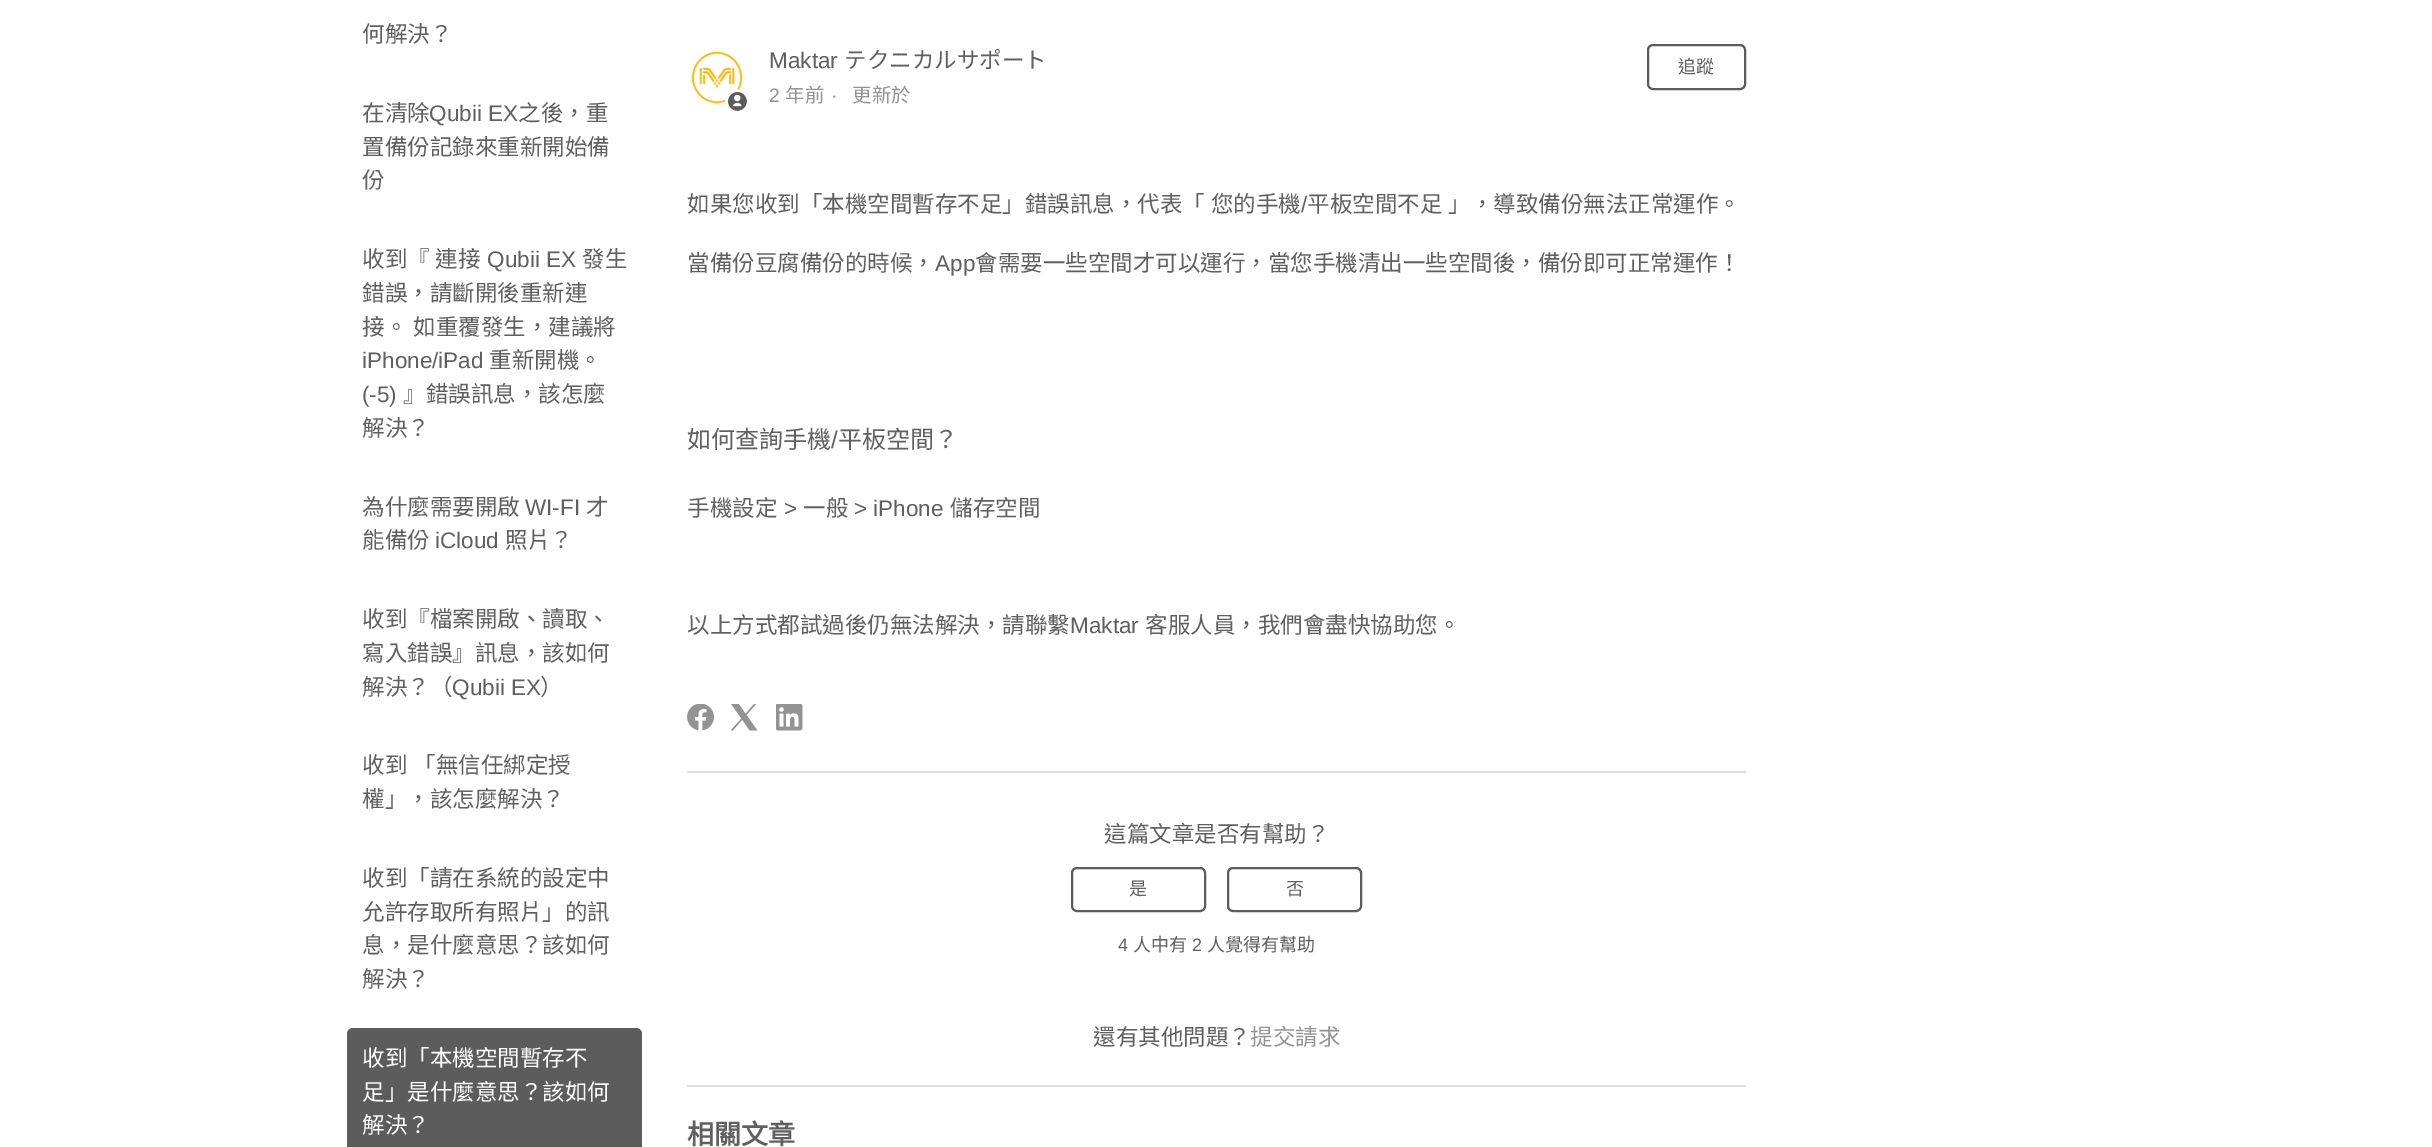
%!PS
<< /PageSize [2432 1147] >> setpagedevice
/rgb { 3 { 255 div 3 1 roll } repeat setrgbcolor } def
/font { [ exch dup neg 0 0 3 -1 roll 0 0 ] selectfont } def
/circle { newpath 0 360 arc closepath } def
/roundrect { 5 dict begin { /r /h /w /y /x } { exch def } forall
  x r add y moveto x w add y 2 copy h add r arct x w add y h add x 1 index r arct
  x y h add x y r arct x y 2 copy exch w add exch r arct closepath end } def
/picture { 5 dict begin { /h /w /y /x /name } { exch def } forall
  gsave x y translate w h scale
  w h 8 [w 0 0 h 0 0] name (r) file false 3 colorimage grestore end } def
0 1147 translate 1 -1 scale
4 setmiterlimit
255 255 255 rgb
0 0 2432 1147 rectfill
93 92 92 rgb
347 1028 295 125 6 roundrect fill
(img/1.rgb) 691 51 52 53 picture
255 255 255 rgb
737.5 101.5 11 circle gsave fill grestore
3 setlinewidth
stroke
(img/2.rgb) 728 92 19 19 picture
93 92 92 rgb
2 setlinewidth
1648 45 97 44 5 roundrect stroke
(img/3.rgb) 687 704 27 27 picture
(img/4.rgb) 731 704 27 27 picture
(img/5.rgb) 776 704 27 27 picture
221 221 221 rgb
687 771 1059 2 rectfill
93 92 92 rgb
1072 868 133 43 5 roundrect stroke
1228 868 133 43 5 roundrect stroke
221 221 221 rgb
687 1085 1059 2 rectfill
/NotoSansCJKTC-Regular 22.5 font
97 96 96 rgb
362 42 moveto (何解決？) show
362 121 moveto (在清除) show
/LiberationSans-Regular 22.5 font
429 121 moveto (Qubii EX) show
/NotoSansCJKTC-Regular 22.5 font
[
  [(之後，重) 518 121]
  [(置備份記錄來重新開始備) 362 155]
  [(份) 362 188]
  [(收到『) 362 267]
  [(連接) 435 267]
] { aload pop moveto show } forall
/LiberationSans-Regular 22.5 font
487 267 moveto (Qubii EX) show
/NotoSansCJKTC-Regular 22.5 font
582 267 moveto (發生) show
362 301 moveto (錯誤，請斷開後重新連) show
362 335 moveto 1 0 32 (接。 如重覆發生，建議將) widthshow
/LiberationSans-Regular 22.5 font
362 368 moveto (iPhone/iPad) show
/NotoSansCJKTC-Regular 22.5 font
489 368 moveto (重新開機。) show
/LiberationSans-Regular 22.5 font
362 402 moveto (\(-5\)) show
/NotoSansCJKTC-Regular 22.5 font
[
  [(』錯誤訊息，該怎麼) 403 402]
  [(解決？) 362 436]
  [(為什麼需要開啟) 362 515]
] { aload pop moveto show } forall
/LiberationSans-Regular 22.5 font
525 515 moveto (WI-FI) show
/NotoSansCJKTC-Regular 22.5 font
586 515 moveto (才) show
362 548 moveto (能備份) show
/LiberationSans-Regular 22.5 font
435 548 moveto (iCloud) show
/NotoSansCJKTC-Regular 22.5 font
[
  [(照片？) 505 548]
  [(收到『檔案開啟、讀取、) 362 627]
  [(寫入錯誤』訊息，該如何) 362 661]
  [(解決？（) 362 695]
] { aload pop moveto show } forall
/LiberationSans-Regular 22.5 font
452 695 moveto (Qubii EX) show
/NotoSansCJKTC-Regular 22.5 font
540 695 moveto (）) show
362 773 moveto 1 0 32 (收到 「無信任綁定授) widthshow
[
  [(權」，該怎麼解決？) 362 807]
  [(收到「請在系統的設定中) 362 886]
  [(允許存取所有照片」的訊) 362 920]
  [(息，是什麼意思？該如何) 362 953]
  [(解決？) 362 987]
] { aload pop moveto show } forall
255 255 255 rgb
[
  [(收到「本機空間暫存不) 362 1066]
  [(足」是什麼意思？該如何) 362 1100]
  [(解決？) 362 1133]
] { aload pop moveto show } forall
/LiberationSans-Regular 22.5 font
97 96 96 rgb
769 68 moveto (Maktar) show
/NotoSansCJKTC-Regular 22.5 font
844 68 moveto (テクニカルサポート) show
/LiberationSans-Regular 19.5 font
148 147 147 rgb
769 102 moveto (2) show
/NotoSansCJKTC-Regular 19.5 font
785 102 moveto (年前) show
/LiberationSans-Regular 19.5 font
831 102 moveto (·) show
/NotoSansCJKTC-Regular 19.5 font
852 102 moveto (更新於) show
/NotoSansCJKTC-Regular 18 font
97 96 96 rgb
1678 73 moveto (追蹤) show
/NotoSansCJKTC-Regular 22.5 font
687 212 moveto 1 0 32 (如果您收到「本機空間暫存不足」錯誤訊息，代表「 您的手機) widthshow
/LiberationSans-Regular 22.5 font
1301 212 moveto (/) show
/NotoSansCJKTC-Regular 22.5 font
1307 212 moveto 1 0 32 (平板空間不足 」，導致備份無法正常運作。) widthshow
687 271 moveto (當備份豆腐備份的時候，) show
/LiberationSans-Regular 22.5 font
935 271 moveto (App) show
/NotoSansCJKTC-Regular 22.5 font
975 271 moveto (會需要一些空間才可以運行，當您手機清出一些空間後，備份即可正常運作！) show
/NotoSansCJKTC-Regular 24 font
687 448 moveto (如何查詢手機) show
/LiberationSans-Regular 24 font
831 448 moveto (/) show
/NotoSansCJKTC-Regular 24 font
838 448 moveto (平板空間？) show
/NotoSansCJKTC-Regular 22.5 font
687 516 moveto (手機設定) show
/LiberationSans-Regular 22.5 font
784 516 moveto (>) show
/NotoSansCJKTC-Regular 22.5 font
803 516 moveto (一般) show
/LiberationSans-Regular 22.5 font
854 516 moveto (> iPhone) show
/NotoSansCJKTC-Regular 22.5 font
950 516 moveto (儲存空間) show
687 633 moveto (以上方式都試過後仍無法解決，請聯繫) show
/LiberationSans-Regular 22.5 font
1070 633 moveto (Maktar) show
/NotoSansCJKTC-Regular 22.5 font
1145 633 moveto (客服人員，我們會盡快協助您。) show
1104 842 moveto (這篇文章是否有幫助？) show
/NotoSansCJKTC-Regular 18 font
1129 895 moveto (是) show
1286 895 moveto (否) show
/LiberationSans-Regular 18 font
1118 951 moveto (4) show
/NotoSansCJKTC-Regular 18 font
1133 951 moveto (人中有) show
/LiberationSans-Regular 18 font
1192 951 moveto (2) show
/NotoSansCJKTC-Regular 18 font
1207 951 moveto (人覺得有幫助) show
/NotoSansCJKTC-Regular 22.5 font
1093 1045 moveto (還有其他問題？) show
148 147 147 rgb
1250 1045 moveto (提交請求) show
/NotoSansCJKTC-Bold 27 font
97 96 96 rgb
687 1144 moveto (相關文章) show
showpage
